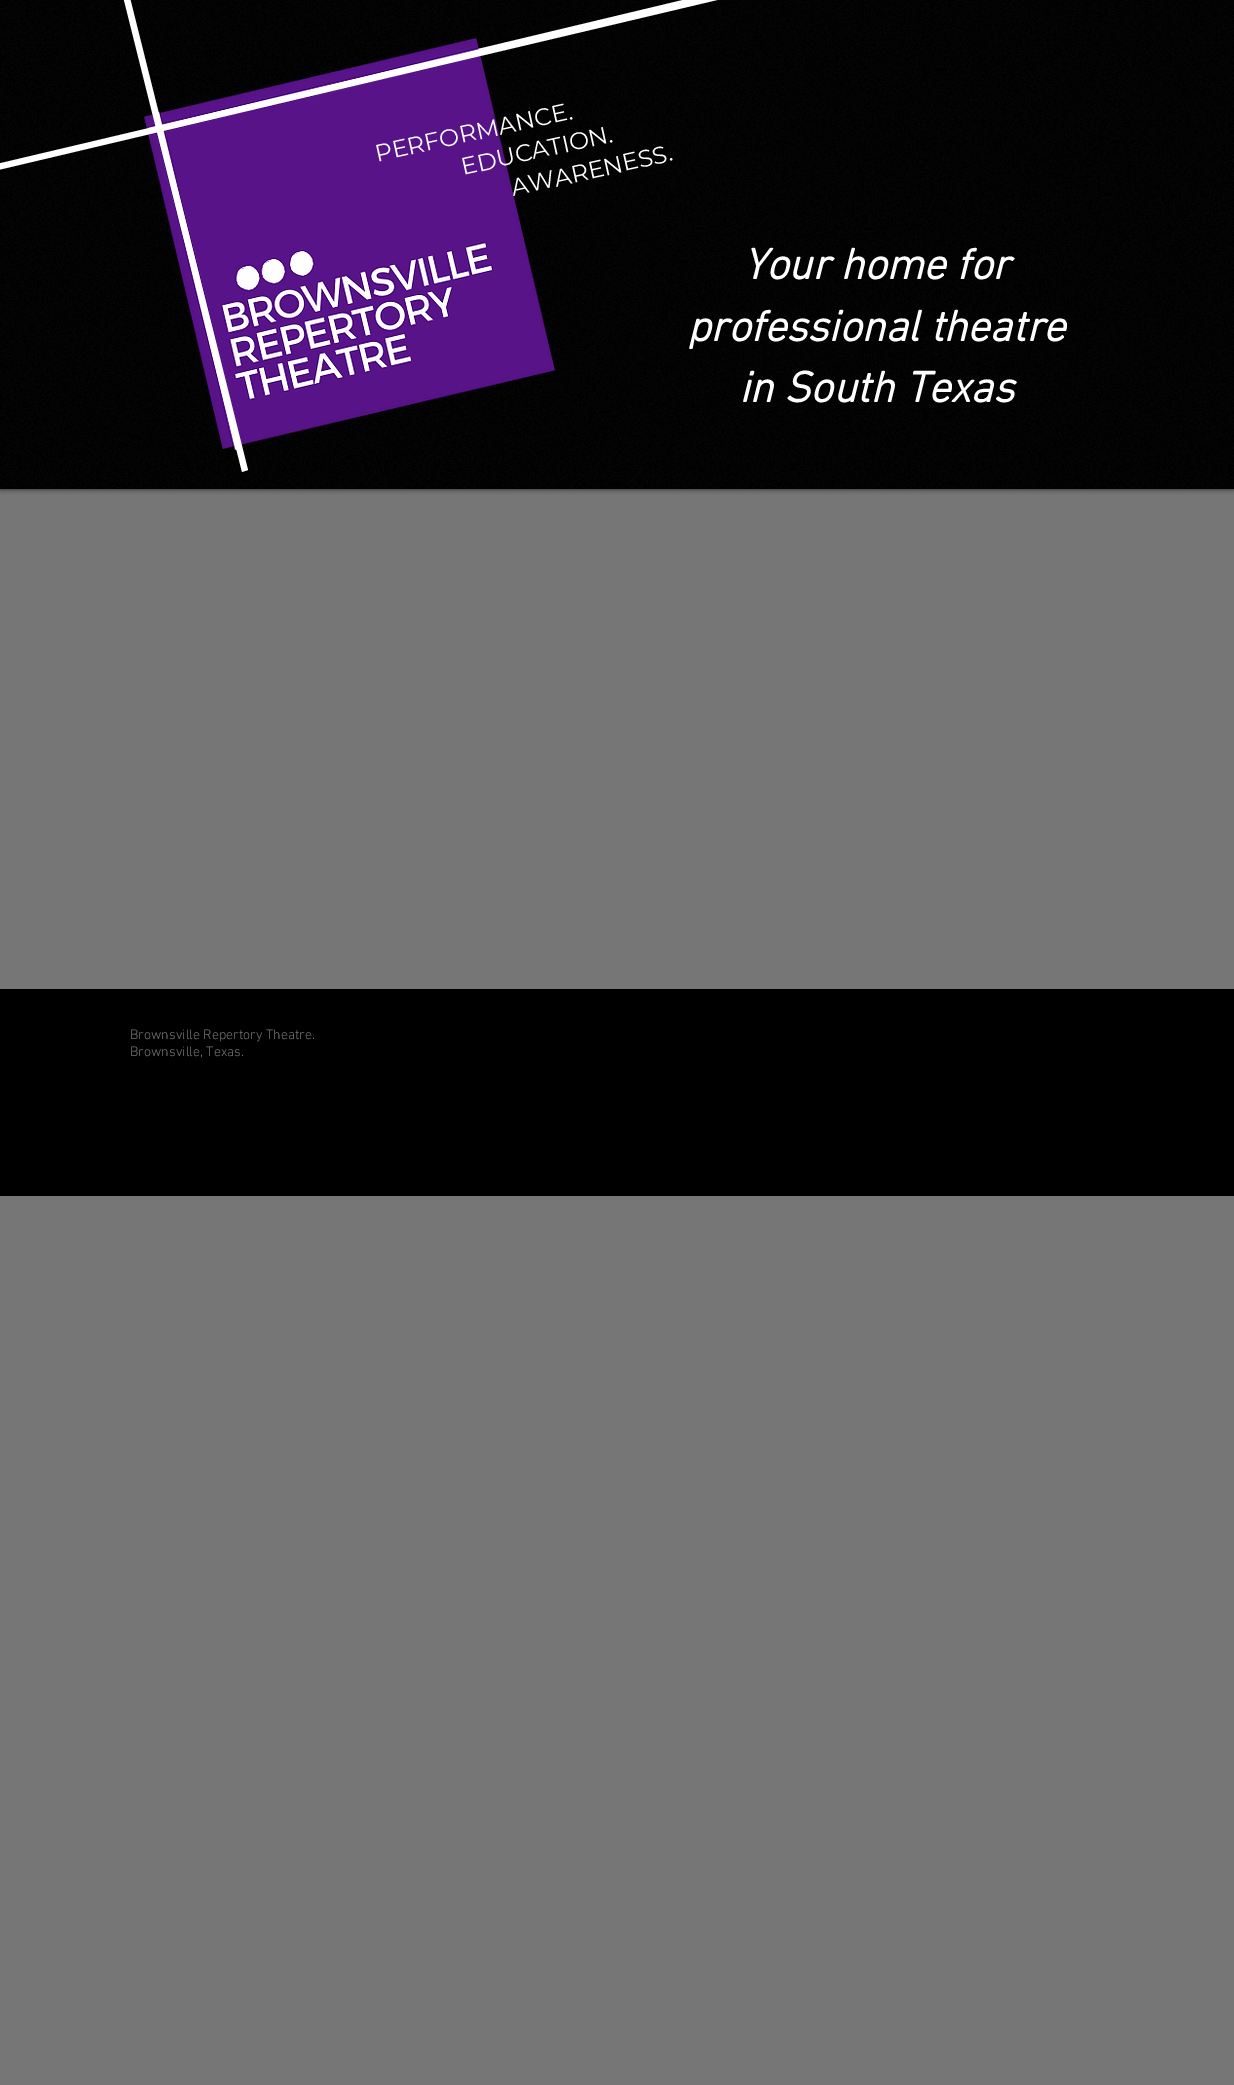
%!PS
<< /PageSize [1234 2085] /PageUsesTransparency true >> setpagedevice
/rgb { 3 { 255 div 3 1 roll } repeat setrgbcolor } def
/font { [ exch dup neg 0 0 3 -1 roll 0 0 ] selectfont } def
/alpha { dup .setfillconstantalpha .setstrokeconstantalpha } def
/roundrect { 5 dict begin { /r /h /w /y /x } { exch def } forall
  x r add y moveto x w add y 2 copy h add r arct x w add y h add x 1 index r arct
  x y h add x y r arct x y 2 copy exch w add exch r arct closepath end } def
/shadow { 12 dict begin { /a /b /q /h /w /y /x } { exch def } forall gsave /was 0 def
  9 -2 -9 { dup b mul 4 div /e exch def 1 sub .425 mul 2.718 exch exp 1 add a .99 .min exch div /now exch def
    1 1 now sub 1 was sub div sub alpha /was now def
    w h .min e 2 mul add 0 gt { x e sub y e sub w e 2 mul add h e 2 mul add
      q e add b .6 mul add w h .min 2 div e add .min 0 .max roundrect fill } if } for grestore end } def
/picture { 5 dict begin { /h /w /y /x /name } { exch def } forall
  gsave x y translate w h scale
  w h 8 [w 0 0 h 0 0] name (r) file false 3 colorimage grestore end } def
0 .pushpdf14devicefilter
0 2085 translate 1 -1 scale
4 setmiterlimit
118 118 118 rgb
0 0 1234 2085 rectfill
0 0 0 rgb
0 0 1234 489 0 2.5 0.7 shadow
0 0 1234 489 rectfill
(img/1.rgb) 0 0 1234 489 picture
(img/2.rgb) 144 38 411 412 picture
255 255 255 rgb
242 472 moveto 91 -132 lineto 97 -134 lineto 248 470 lineto closepath fill
478 49 moveto 754 -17 lineto 756 -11 lineto 480 55 lineto closepath fill
-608 307 moveto 788 -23 lineto 789 -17 lineto -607 313 lineto closepath fill
0 0 0 rgb
0 989 1234 207 rectfill
/Montserrat-Regular 24 font
255 255 255 rgb
gsave 377 162 translate -12.5 rotate 0 0 moveto (PERFORMANCE.) show grestore
gsave 463 175 translate -12.5 rotate 0 0 moveto (EDUCATION.) show grestore
gsave 513 196 translate -12.5 rotate 0 0 moveto (AWARENESS.) show grestore
/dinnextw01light-BoldItalic 44 font
[
  [(Your home for) 743 279]
  [(professional theatre) 687 341]
  [(in South Texas) 739 402]
] { aload pop moveto show } forall
/dinnextw01light-Light 14 font
118 118 118 rgb
130 1039 moveto (Brownsville Repertory Theatre.) show
130 1056 moveto (Brownsville, Texas.) show
.poppdf14devicefilter showpage
